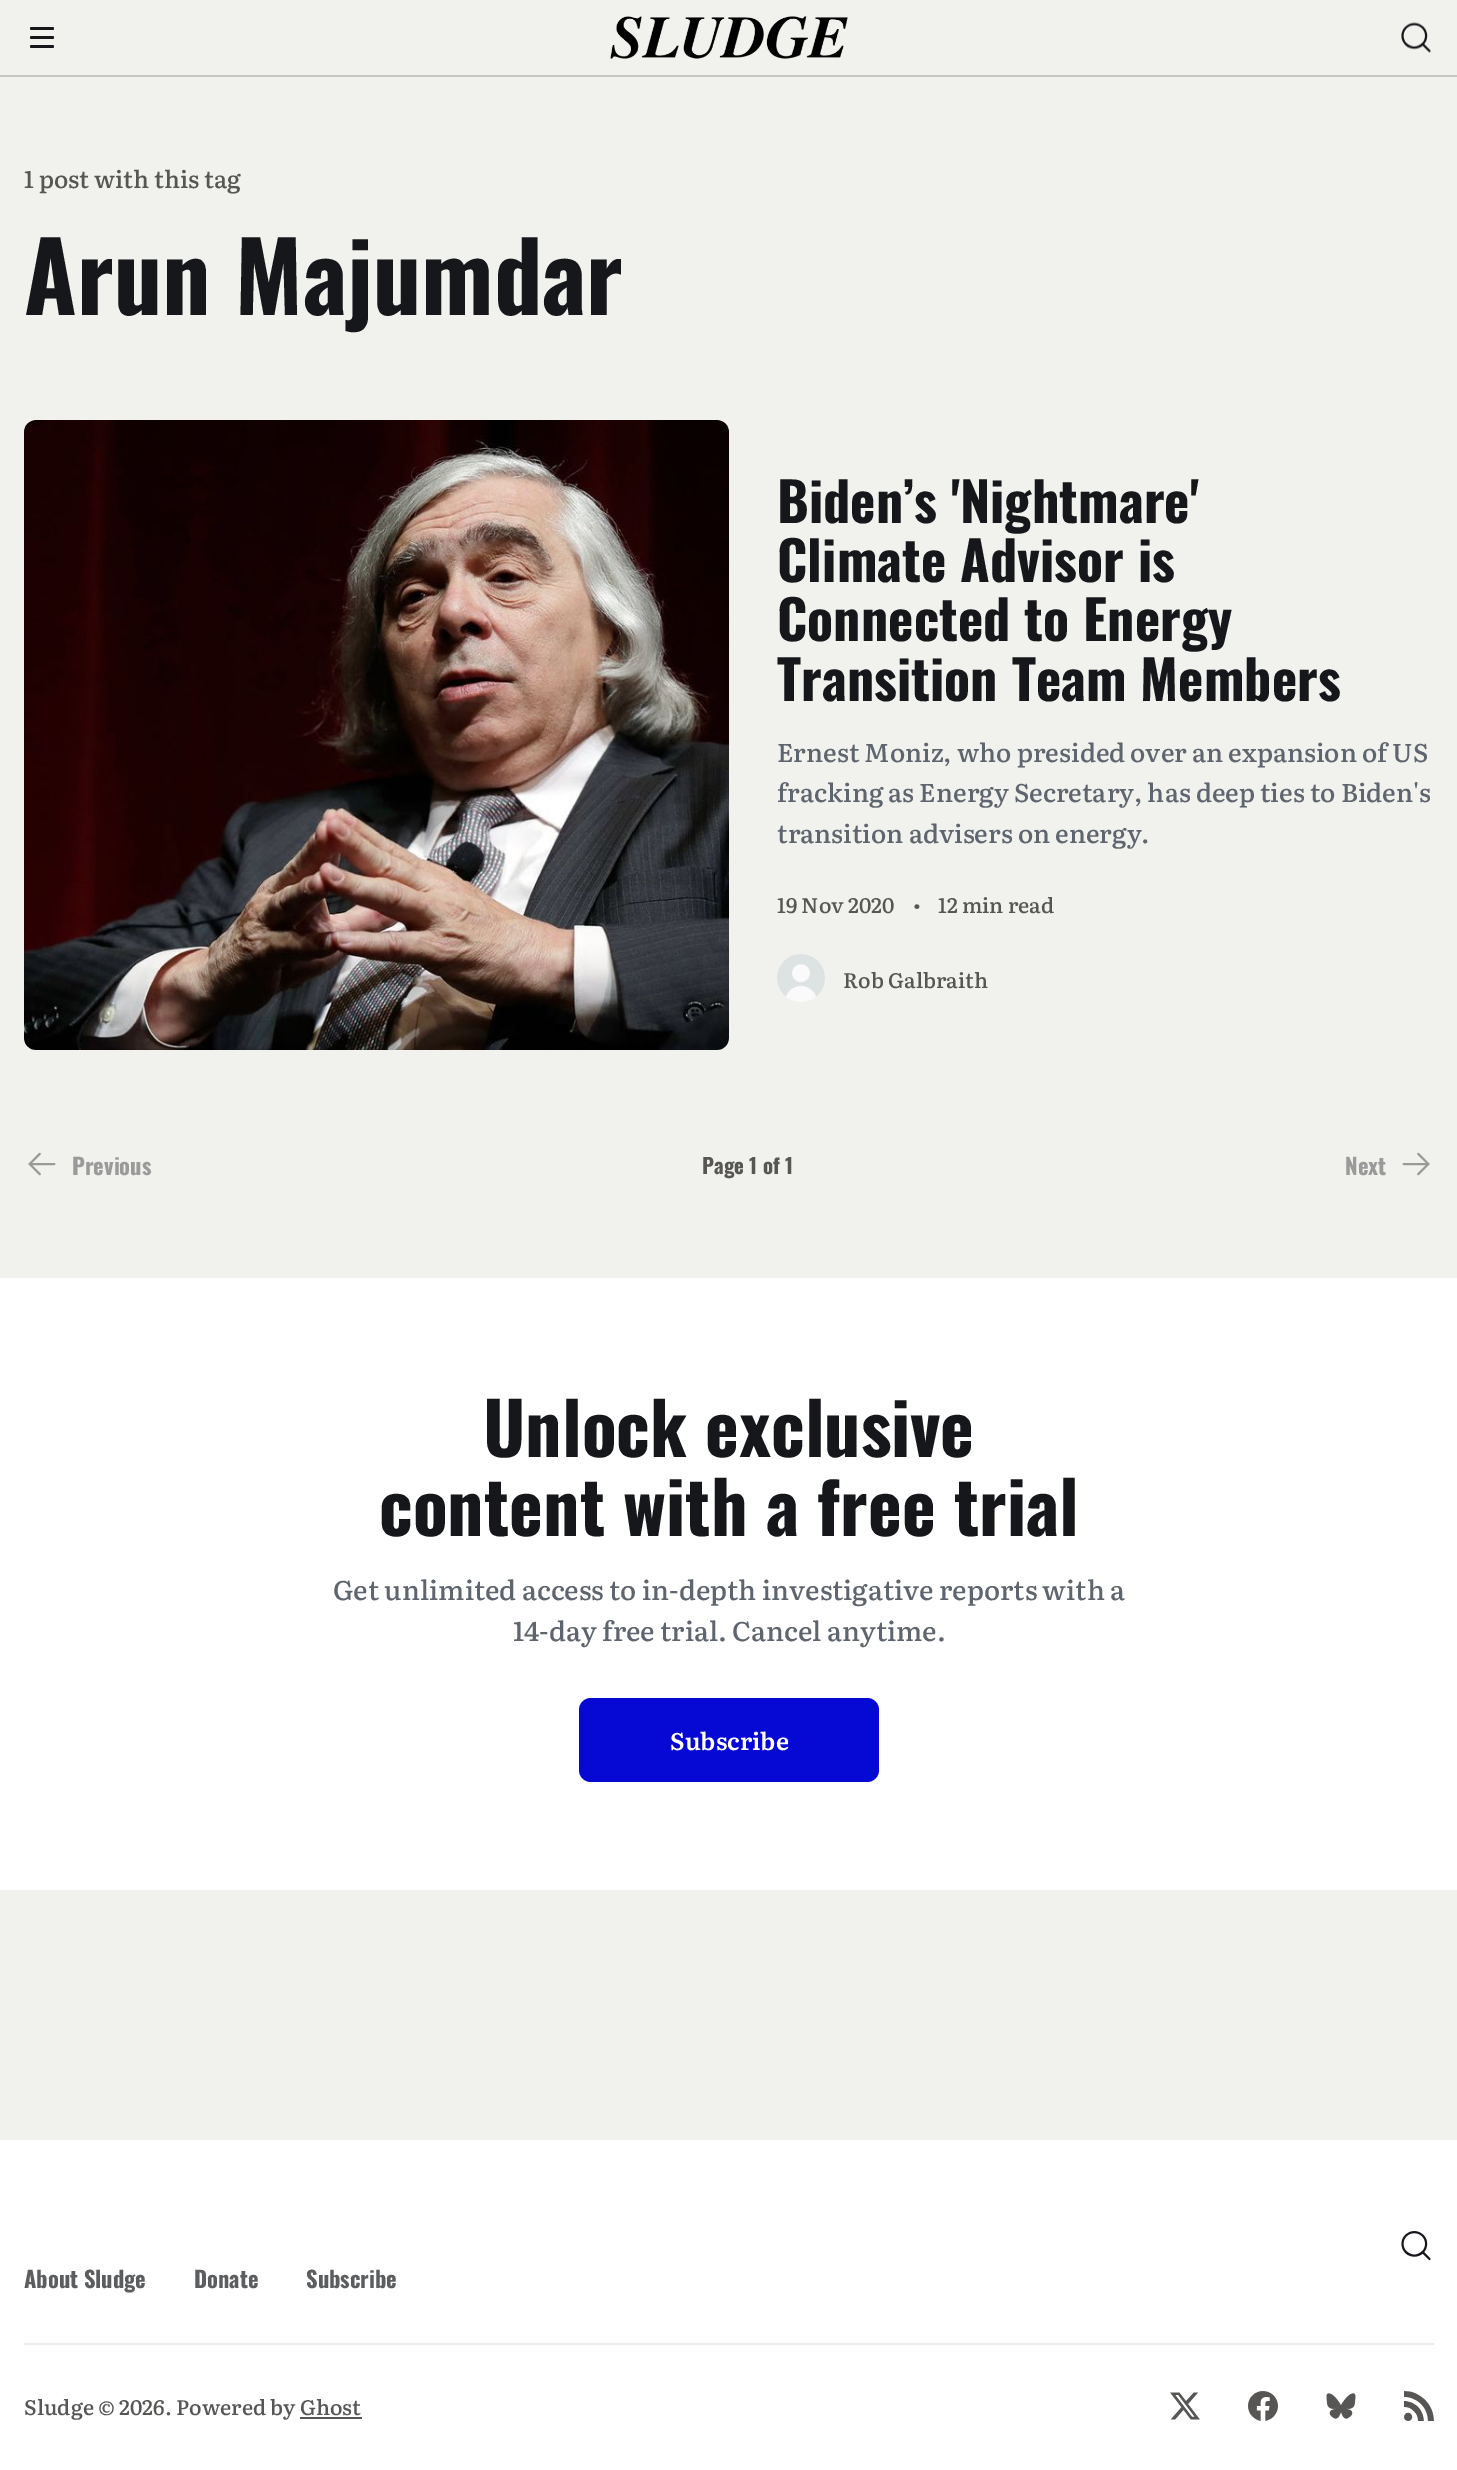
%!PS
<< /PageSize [1457 2470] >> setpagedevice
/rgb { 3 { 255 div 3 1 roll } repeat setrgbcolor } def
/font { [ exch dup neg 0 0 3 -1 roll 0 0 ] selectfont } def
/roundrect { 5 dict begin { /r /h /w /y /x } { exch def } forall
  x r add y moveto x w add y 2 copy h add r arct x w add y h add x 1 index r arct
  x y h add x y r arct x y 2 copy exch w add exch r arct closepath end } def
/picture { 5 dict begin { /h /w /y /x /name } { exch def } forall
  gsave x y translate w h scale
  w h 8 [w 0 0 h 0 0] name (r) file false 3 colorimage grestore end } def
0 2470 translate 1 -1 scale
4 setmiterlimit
241 242 237 rgb
0 0 1457 2470 rectfill
21 23 26 rgb
30 27 24 3 1.5 roundrect fill
30 36 24 3 1.5 roundrect fill
30 45 24 3 1.5 roundrect fill
(img/1.rgb) 610 16 238 43 picture
(img/2.rgb) 1401 22 30 31 picture
197 198 195 rgb
0 75 1457 2 rectfill
(img/3.rgb) 24 420 705 630 picture
(img/4.rgb) 777 954 48 48 picture
(img/5.rgb) 28 1152 28 24 picture
(img/6.rgb) 1402 1152 28 24 picture
255 255 255 rgb
0 1278 1457 612 rectfill
5 9 211 rgb
579 1698 300 84 12 roundrect fill
255 255 255 rgb
0 2140 1457 330 rectfill
(img/7.rgb) 1401 2231 30 30 picture
235 236 237 rgb
24 2343 1410 2 rectfill
87 86 85 rgb
300 2417 62 2 rectfill
(img/8.rgb) 1170 2392 30 28 picture
(img/9.rgb) 1248 2391 30 30 picture
(img/10.rgb) 1326 2393 30 26 picture
(img/11.rgb) 1404 2391 30 30 picture
/Literata-Medium 24 font
24 188 moveto (1 post with this tag) show
/Oswald-Bold 96 font
21 23 26 rgb
24 315 moveto (Arun Majumdar) show
/Oswald-Bold 54 font
[
  [(Biden’s 'Nightmare') 777 523]
  [(Climate Advisor is) 777 582]
  [(Connected to Energy) 777 641]
  [(Transition Team Members) 777 701]
] { aload pop moveto show } forall
/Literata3-Medium 25.5 font
95 101 110 rgb
[
  [(Ernest Moniz, who presided over an expansion of US) 777 762]
  [(fracking as Energy Secretary, has deep ties to Biden's) 777 802]
  [(transition advisers on energy.) 777 843]
] { aload pop moveto show } forall
/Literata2-Medium 21 font
87 86 85 rgb
[
  [(19 Nov 2020) 777 913]
  [(•) 913 913]
  [(12 min read) 938 913]
  [(Rob Galbraith) 843 988]
] { aload pop moveto show } forall
/Oswald-Bold 22.5 font
153 154 153 rgb
72 1175 moveto (Previous) show
/Oswald-Bold 21 font
87 86 85 rgb
702 1174 moveto (Page 1 of 1) show
/Oswald-Bold 22.5 font
153 154 153 rgb
1345 1175 moveto (Next) show
/Oswald-Bold 72 font
21 23 26 rgb
483 1457 moveto (Unlock exclusive) show
379 1536 moveto (content with a free trial) show
/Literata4-Medium 27 font
95 101 110 rgb
333 1600 moveto (Get unlimited access to in-depth investigative reports with a) show
513 1641 moveto (14-day free trial. Cancel anytime.) show
/Literata-SemiBold 24 font
255 255 255 rgb
670 1750 moveto (Subscribe) show
/Oswald-Bold 22.5 font
91 93 95 rgb
[
  [(About Sludge) 24 2288]
  [(Donate) 194 2288]
  [(Subscribe) 306 2288]
] { aload pop moveto show } forall
/Literata2-Medium 21 font
87 86 85 rgb
24 2415 moveto (Sludge © 2026. Powered by Ghost) show
showpage
